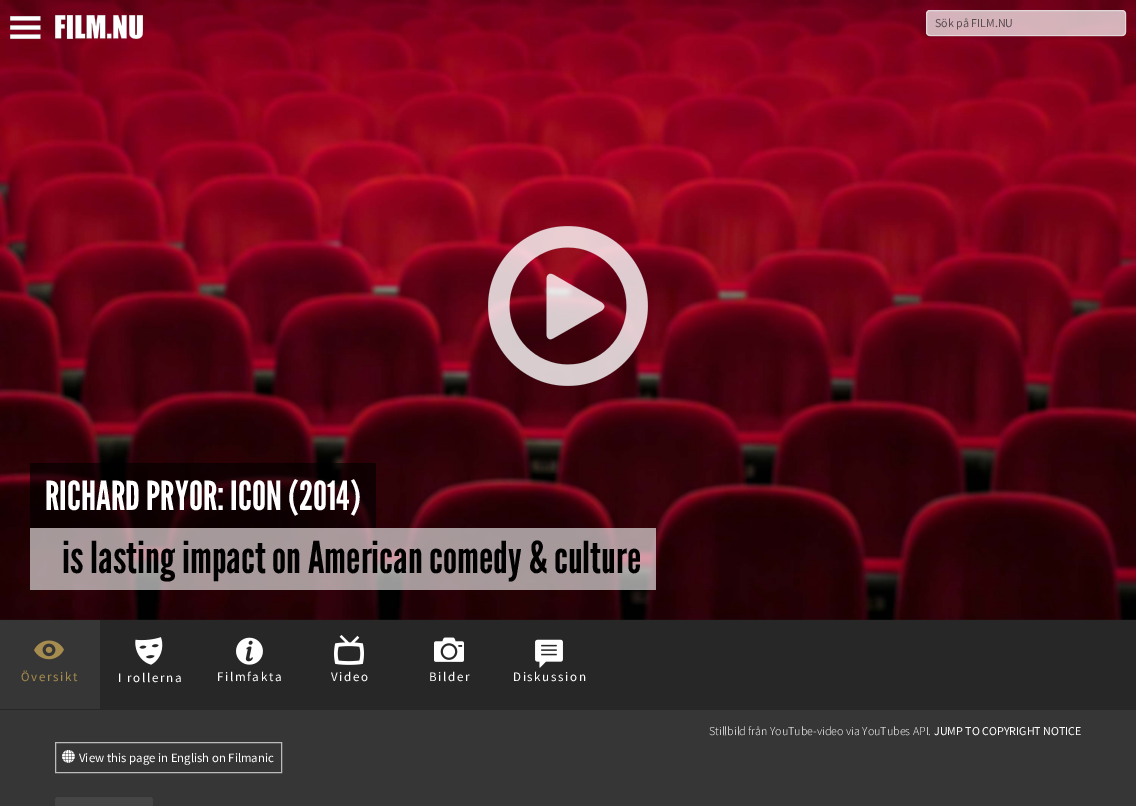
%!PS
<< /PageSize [1136 806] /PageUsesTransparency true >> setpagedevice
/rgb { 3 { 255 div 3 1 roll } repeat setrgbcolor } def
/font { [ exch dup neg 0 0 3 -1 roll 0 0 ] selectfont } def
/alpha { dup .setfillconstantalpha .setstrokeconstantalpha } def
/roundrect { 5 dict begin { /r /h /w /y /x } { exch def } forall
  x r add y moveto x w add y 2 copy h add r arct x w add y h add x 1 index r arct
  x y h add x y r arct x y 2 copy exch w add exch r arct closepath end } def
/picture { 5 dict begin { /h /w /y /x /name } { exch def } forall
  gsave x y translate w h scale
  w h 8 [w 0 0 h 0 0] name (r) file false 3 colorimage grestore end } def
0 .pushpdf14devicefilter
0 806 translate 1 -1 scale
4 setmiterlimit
255 255 255 rgb
0 0 1136 806 rectfill
(img/3.rgb) 0 0 1136 620 picture
(img/1.rgb) 10 16 31 23 picture
(img/2.rgb) 55 15 88 24 picture
0.7 alpha
926 10 200 26 4 roundrect fill
230 230 230 rgb
926.5 10.5 199 25 3.5 roundrect stroke
1 alpha
(img/4.rgb) 488 226 160 160 picture
0.6 alpha
[
  [30 463 346 65 0 0 0]
  [30 528 626 62 255 255 255]
] { aload pop rgb rectfill } forall
1 alpha
[
  [0 620 1136 90 39 39 39]
  [0 620 100 89 54 54 54]
] { aload pop rgb rectfill } forall
(img/5.rgb) 34 640 30 20 picture
(img/6.rgb) 135 637 28 28 picture
(img/7.rgb) 236 637 27 28 picture
(img/8.rgb) 334 635 30 30 picture
(img/9.rgb) 434 637 30 25 picture
(img/10.rgb) 535 639 28 29 picture
0 710 1136 96 rectfill
187 187 187 rgb
55.5 742.5 226 30 rectstroke
(img/11.rgb) 62 750 13 13 picture
69 69 69 rgb
55 797 98 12 3 roundrect fill
/SourceSansPro-Regular 12 font
88 77 80 rgb
935 27 moveto (Sök på FILM.NU) show
/LeagueGothic-Regular 40 font
255 255 255 rgb
45 510 moveto (RICHARD PRYOR: ICON \(2014\)) show
/LeagueGothic-Regular 44 font
0 0 0 rgb
62 573 moveto (is lasting impact on American comedy & culture) show
/SourceSansPro-Regular 13 font
166 140 78 rgb
21 681 moveto 1.6 0 (Översikt) ashow
255 255 255 rgb
118 682 moveto 1.6 0 (I rollerna) ashow
217 681 moveto 1.6 0 (Filmfakta) ashow
331 681 moveto 1.6 0 (Video) ashow
429 681 moveto 1.6 0 (Bilder) ashow
513 681 moveto 1.6 0 (Diskussion) ashow
/SourceSansPro-Light 12 font
709 735 moveto (Stillbild från YouTube-video via YouTubes API.) show
/SourceSansPro-Regular 12 font
934 735 moveto (JUMP TO COPYRIGHT NOTICE) show
/SourceSansPro-Regular 12.75 font
79 762 moveto (View this page in English on Filmanic) show
.poppdf14devicefilter showpage
